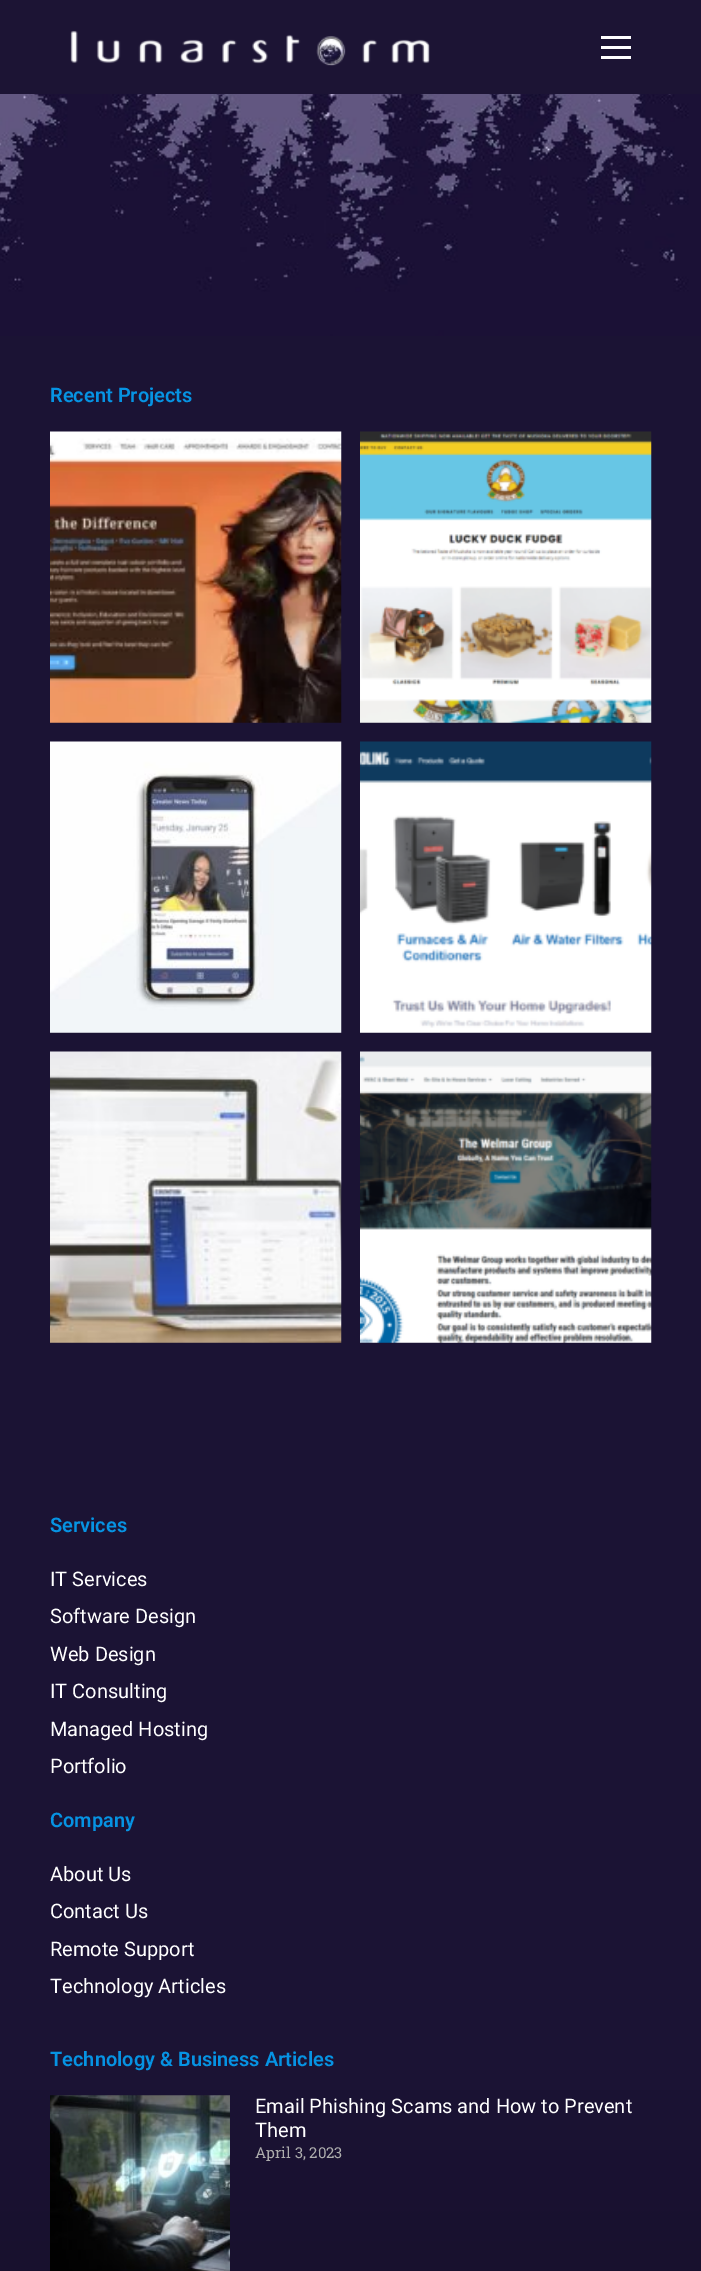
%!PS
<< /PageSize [701 2271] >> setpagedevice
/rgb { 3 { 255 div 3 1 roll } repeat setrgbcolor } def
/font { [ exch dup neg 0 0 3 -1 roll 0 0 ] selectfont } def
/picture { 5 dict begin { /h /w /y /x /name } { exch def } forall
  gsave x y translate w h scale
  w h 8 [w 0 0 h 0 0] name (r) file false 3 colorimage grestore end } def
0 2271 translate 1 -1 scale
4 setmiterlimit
255 255 255 rgb
0 0 701 2271 rectfill
28 20 52 rgb
0 0 701 94 rectfill
(img/1.rgb) 70 30 360 36 picture
[
  [601 36 30 3 255 255 255]
  [601 46 30 3 255 255 255]
  [601 56 30 3 255 255 255]
] { aload pop rgb rectfill } forall
(img/2.rgb) 0 94 701 242 picture
gsave 0 336 moveto 701 336 lineto 701 2271 lineto 0 2271 lineto closepath clip newpath
<< /ShadingType 2 /ColorSpace /DeviceRGB /Coords [351 336 351 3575] /Extend [true true] /Function << /FunctionType 3 /Domain [0 1] /Functions [<< /FunctionType 2 /Domain [0 1] /C0 [0.106 0.075 0.204] /C1 [0.106 0.075 0.204] /N 1 >> << /FunctionType 2 /Domain [0 1] /C0 [0.106 0.075 0.204] /C1 [0 0 0] /N 1 >>] /Bounds [0.54] /Encode [0 1 0 1] >> >> shfill grestore
(img/3.rgb) 50 431 292 292 picture
(img/4.rgb) 360 431 292 292 picture
(img/5.rgb) 50 741 292 292 picture
(img/6.rgb) 360 741 292 292 picture
(img/7.rgb) 50 1051 292 292 picture
(img/8.rgb) 360 1051 292 292 picture
(img/9.rgb) 50 2095 180 176 picture
/Roboto-SemiBold 20 font
6 147 227 rgb
50 402 moveto (Recent Projects) show
50 1532 moveto (Services) show
/Roboto-Regular 20 font
255 255 255 rgb
[
  [(IT Services) 50 1586]
  [(Software Design) 50 1623]
  [(Web Design) 50 1661]
  [(IT Consulting) 50 1698]
  [(Managed Hosting) 50 1736]
  [(Portfolio) 50 1773]
] { aload pop moveto show } forall
/Roboto-SemiBold 20 font
6 147 227 rgb
50 1827 moveto (Company) show
/Roboto-Regular 20 font
255 255 255 rgb
[
  [(About Us) 50 1881]
  [(Contact Us) 50 1918]
  [(Remote Support) 50 1956]
  [(Technology Articles) 50 1993]
] { aload pop moveto show } forall
/Roboto-SemiBold 20 font
6 147 227 rgb
50 2066 moveto (Technology & Business Articles) show
/Roboto-Regular 20 font
255 255 255 rgb
255 2113 moveto (Email Phishing Scams and How to Prevent) show
255 2137 moveto (Them) show
/RobotoSlab-Regular 15 font
173 173 173 rgb
255 2158 moveto (April 3, 2023) show
showpage
